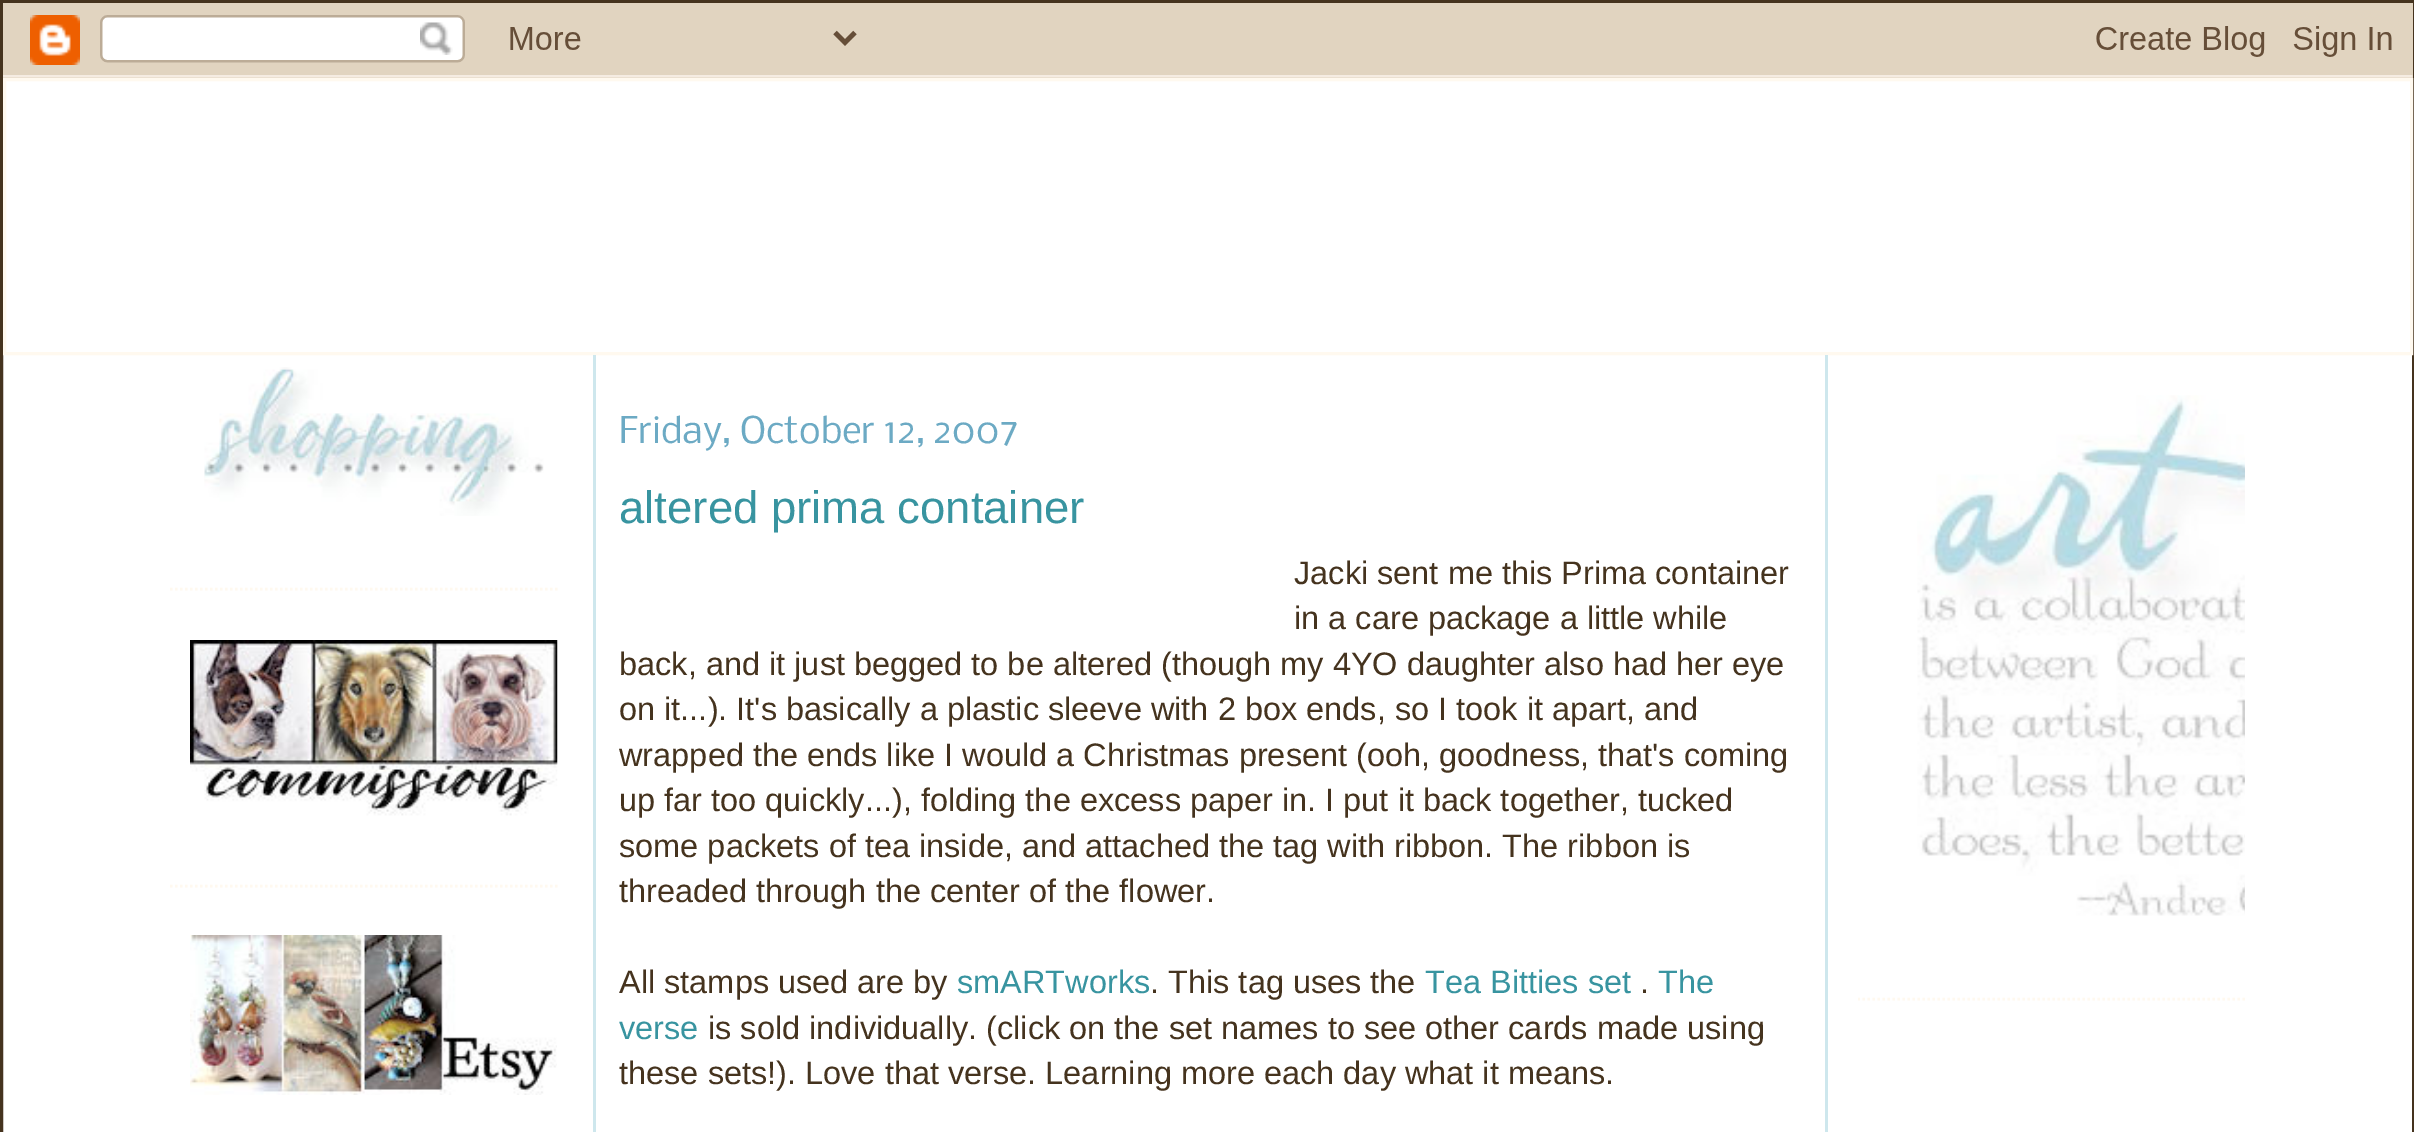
%!PS
<< /PageSize [2414 1132] >> setpagedevice
/rgb { 3 { 255 div 3 1 roll } repeat setrgbcolor } def
/font { [ exch dup neg 0 0 3 -1 roll 0 0 ] selectfont } def
/picture { 5 dict begin { /h /w /y /x /name } { exch def } forall
  gsave x y translate w h scale
  w h 8 [w 0 0 h 0 0] name (r) file false 3 colorimage grestore end } def
0 1132 translate 1 -1 scale
4 setmiterlimit
255 255 255 rgb
0 0 2414 1132 rectfill
69 51 30 rgb
3 setlinewidth
1.5 1.5 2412 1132 rectstroke
(img/1.rgb) 3 3 2410 75 picture
255 249 239 rgb
4.5 79.5 2407 274 rectstroke
2.5 setlinewidth
[2.5 2.5] 0 setdash
170 589 moveto 557.5 589 lineto stroke
(img/2.rgb) 204 367 340 149 picture
170 886 moveto 557.5 886 lineto stroke
(img/3.rgb) 190 640 368 176 picture
(img/4.rgb) 190 935 367 160 picture
206 231 237 rgb
1825 355 3 777 rectfill
593 355 3 777 rectfill
gsave
1858 355 387 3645 rectclip
255 249 239 rgb
1857.5 999 moveto 2245 999 lineto stroke
grestore
(img/5.rgb) 1917 395 328 521 picture
/Nobile-Regular 35 font
108 170 196 rgb
619 443 moveto (Friday, October 12, 2007) show
/LiberationSans-Regular 45.5 font
56 148 160 rgb
619 523 moveto (altered prima container) show
/LiberationSans-Regular 32.5 font
69 51 30 rgb
[
  [(Jacki sent me this Prima container) 1294 584]
  [(in a care package a little while) 1294 629]
  [(back, and it just begged to be altered \(though my 4YO daughter also had her eye) 619 675]
  [(on it...\). It's basically a plastic sleeve with 2 box ends, so I took it apart, and) 619 720]
  [(wrapped the ends like I would a Christmas present \(ooh, goodness, that's coming) 619 766]
  [(up far too quickly...\), folding the excess paper in. I put it back together, tucked) 619 811]
  [(some packets of tea inside, and attached the tag with ribbon. The ribbon is) 619 857]
  [(threaded through the center of the flower.) 619 902]
  [(All stamps used are by) 619 993]
] { aload pop moveto show } forall
56 148 160 rgb
957 993 moveto (smARTworks) show
69 51 30 rgb
1150 993 moveto (. This tag uses the) show
56 148 160 rgb
1425 993 moveto (Tea Bitties set) show
69 51 30 rgb
1640 993 moveto (.) show
56 148 160 rgb
1658 993 moveto (The) show
619 1039 moveto (verse) show
69 51 30 rgb
708 1039 moveto (is sold individually. \(click on the set names to see other cards made using) show
619 1084 moveto (these sets!\). Love that verse. Learning more each day what it means.) show
showpage
